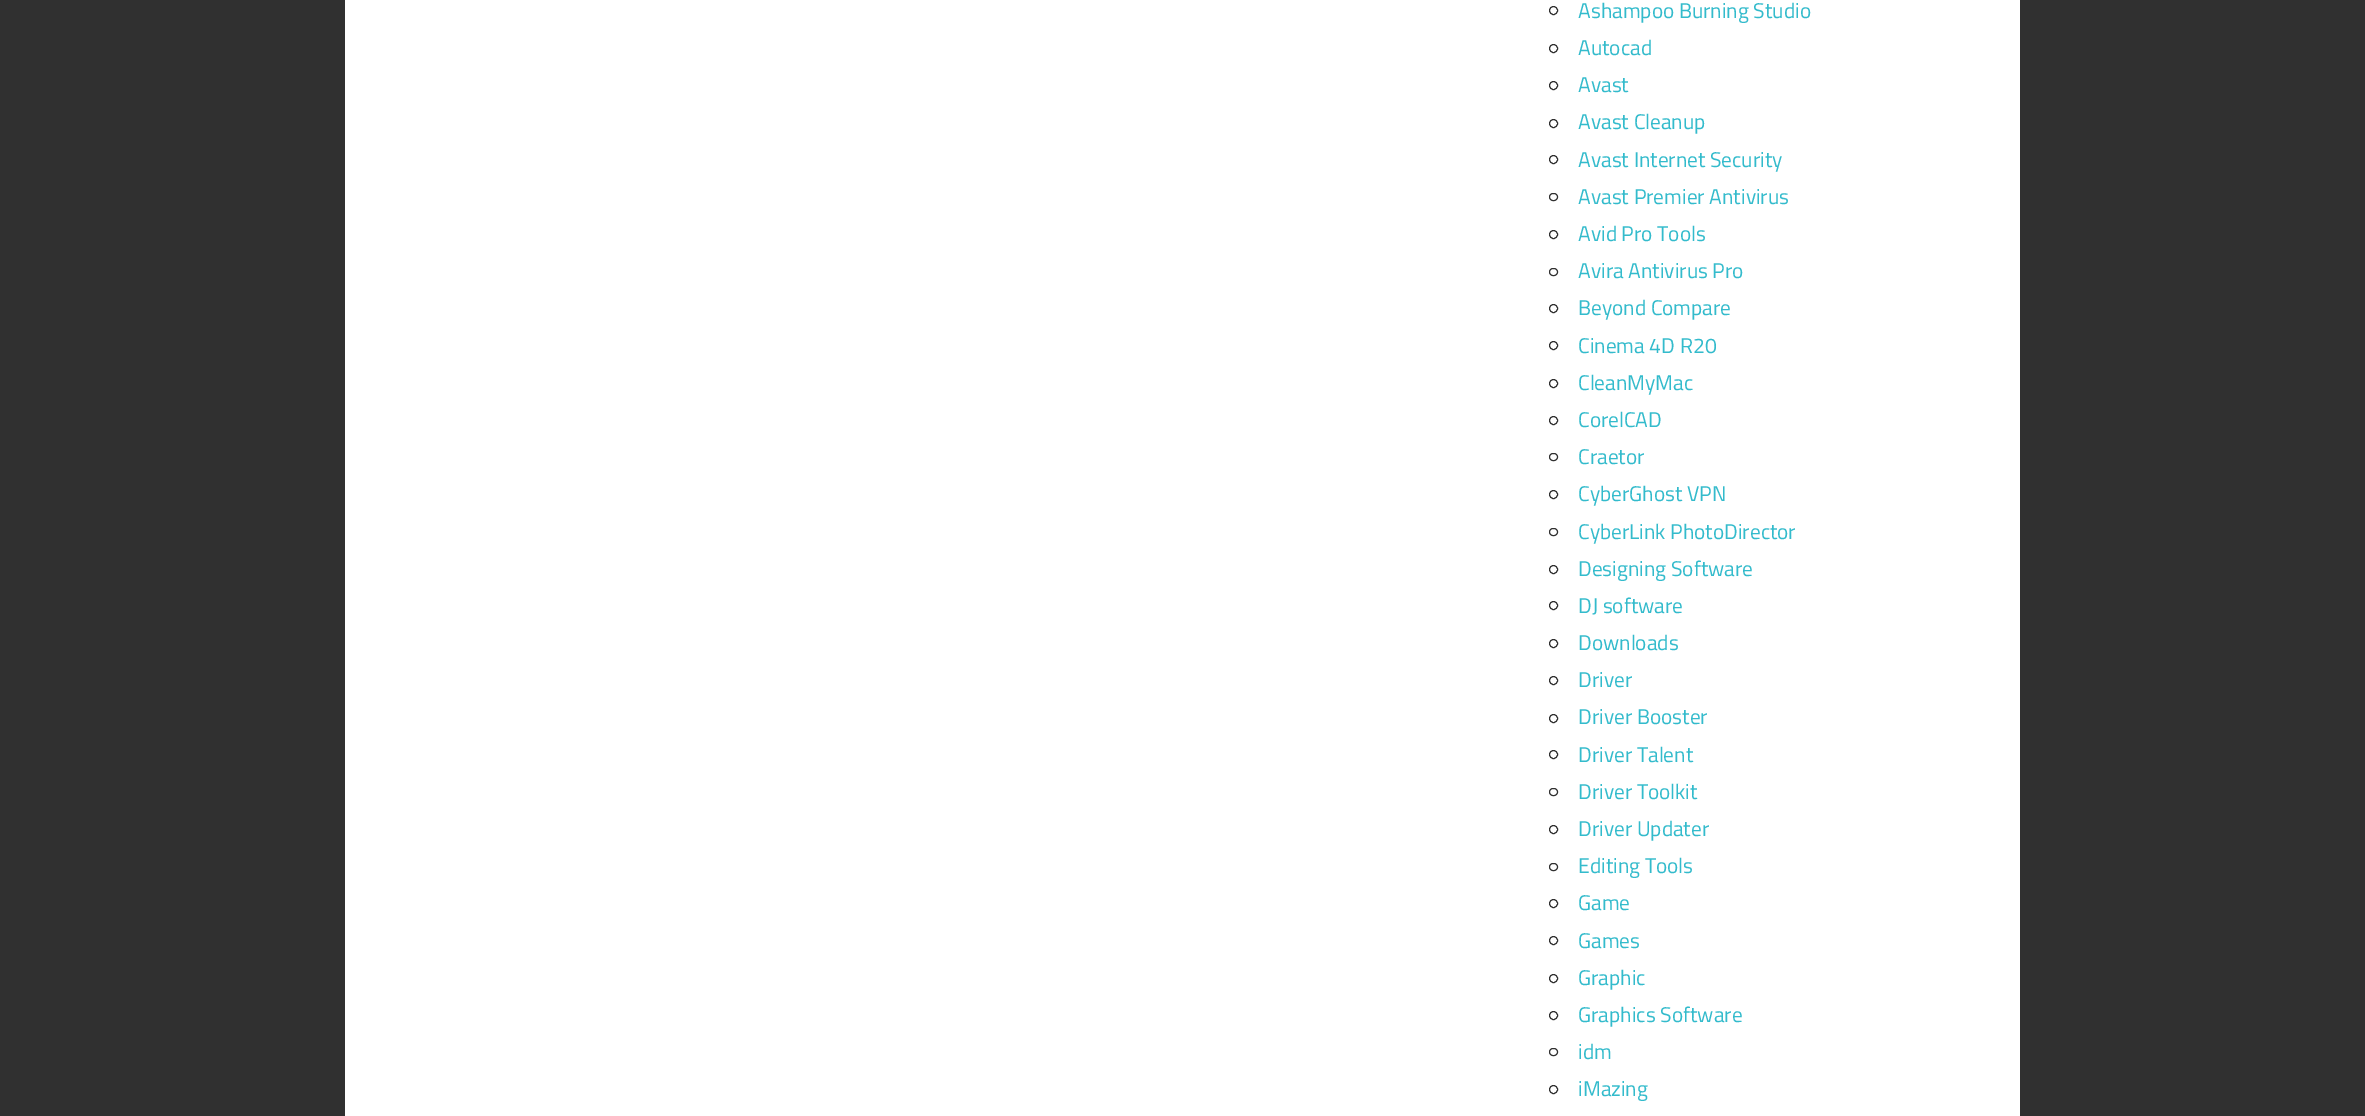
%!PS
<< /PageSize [2365 1116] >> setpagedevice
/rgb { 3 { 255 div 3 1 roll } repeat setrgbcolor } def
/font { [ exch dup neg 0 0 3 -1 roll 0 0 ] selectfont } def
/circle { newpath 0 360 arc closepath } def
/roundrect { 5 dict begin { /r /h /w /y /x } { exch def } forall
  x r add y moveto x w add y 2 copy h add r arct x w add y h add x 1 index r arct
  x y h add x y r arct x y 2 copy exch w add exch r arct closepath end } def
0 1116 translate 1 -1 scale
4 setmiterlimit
48 48 48 rgb
0 0 2365 1116 rectfill
255 255 255 rgb
345 0 1675 1116 rectfill
48 48 48 rgb
1553.5 10.5 4 circle stroke
1553.5 48.5 4 circle stroke
1553.5 85.5 4 circle stroke
1553.5 123.5 4 circle stroke
1553.5 159.5 4 circle stroke
1549.5 193.5 8 7 3.5 roundrect stroke
1553.5 234.5 4 circle stroke
1549.5 268.5 8 7 3.5 roundrect stroke
1553.5 308.5 4 circle stroke
1553.5 345.5 4 circle stroke
1553.5 383.5 4 circle stroke
1553.5 420.5 4 circle stroke
1549.5 453.5 8 7 3.5 roundrect stroke
1553.5 494.5 4 circle stroke
1549.5 528.5 8 7 3.5 roundrect stroke
1553.5 569.5 4 circle stroke
1553.5 605.5 4 circle stroke
1553.5 643.5 4 circle stroke
1553.5 680.5 4 circle stroke
1553.5 718.5 4 circle stroke
1553.5 754.5 4 circle stroke
1549.5 788.5 8 7 3.5 roundrect stroke
1553.5 829.5 4 circle stroke
1549.5 863.5 8 7 3.5 roundrect stroke
1553.5 903.5 4 circle stroke
1553.5 940.5 4 circle stroke
1553.5 978.5 4 circle stroke
1553.5 1015.5 4 circle stroke
1549.5 1048.5 8 7 3.5 roundrect stroke
1553.5 1089.5 4 circle stroke
/TitilliumWeb-Regular 21.25 font
51 187 204 rgb
[
  [(Ashampoo Burning Studio) 1578 18]
  [(Autocad) 1578 55]
  [(Avast) 1578 92]
  [(Avast Cleanup) 1578 129]
  [(Avast Internet Security) 1578 167]
  [(Avast Premier Antivirus) 1578 204]
  [(Avid Pro Tools) 1578 241]
  [(Avira Antivirus Pro) 1578 278]
  [(Beyond Compare) 1578 315]
  [(Cinema 4D R20) 1578 353]
  [(CleanMyMac) 1578 390]
  [(CorelCAD) 1578 427]
  [(Craetor) 1578 464]
  [(CyberGhost VPN) 1578 501]
  [(CyberLink PhotoDirector) 1578 539]
  [(Designing Software) 1578 576]
  [(DJ software) 1578 613]
  [(Downloads) 1578 650]
  [(Driver) 1578 687]
  [(Driver Booster) 1578 724]
  [(Driver Talent) 1578 762]
  [(Driver Toolkit) 1578 799]
  [(Driver Updater) 1578 836]
  [(Editing Tools) 1578 873]
  [(Game) 1578 910]
  [(Games) 1578 948]
  [(Graphic) 1578 985]
  [(Graphics Software) 1578 1022]
  [(idm) 1578 1059]
  [(iMazing) 1578 1096]
] { aload pop moveto show } forall
showpage
